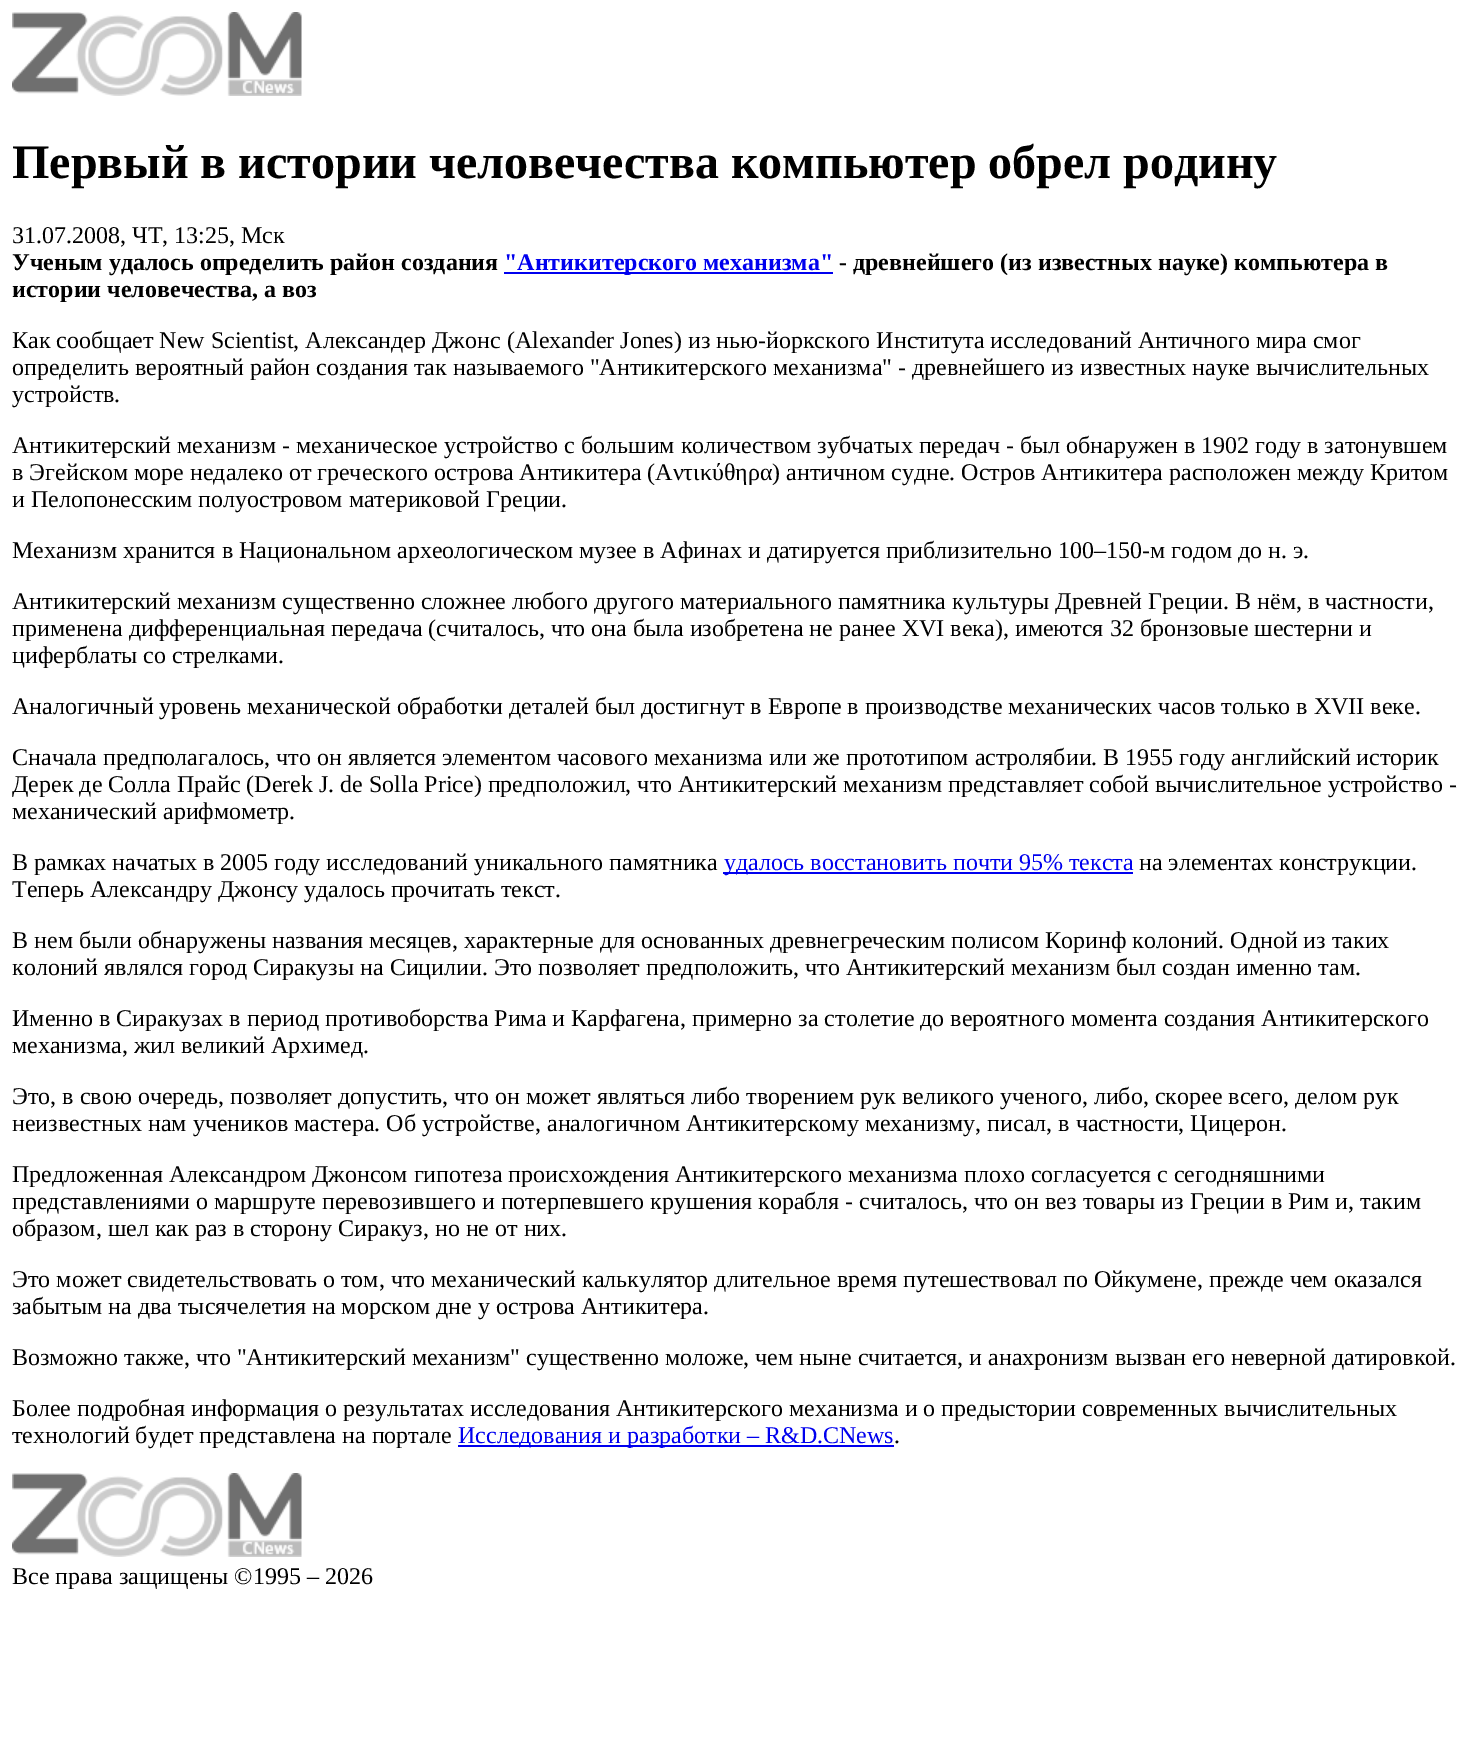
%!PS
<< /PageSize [1475 1744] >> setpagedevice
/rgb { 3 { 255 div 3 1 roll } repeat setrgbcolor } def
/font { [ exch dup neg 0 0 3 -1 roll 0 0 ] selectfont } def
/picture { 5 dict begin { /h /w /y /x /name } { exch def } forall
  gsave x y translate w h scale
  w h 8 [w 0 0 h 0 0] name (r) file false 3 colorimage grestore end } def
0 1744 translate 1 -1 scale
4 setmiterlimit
255 255 255 rgb
0 0 1475 1744 rectfill
(img/1.rgb) 12 12 290 84 picture
[
  [504 272 329 2 0 0 238]
  [723 872 410 2 0 0 238]
  [458 1445 436 2 0 0 238]
] { aload pop rgb rectfill } forall
(img/1.rgb) 12 1473 290 84 picture
/LiberationSerif-Bold 48 font
0 0 0 rgb
12 178 moveto (Первый в истории человечества компьютер обрел родину) show
/LiberationSerif-Regular 24 font
12 243 moveto (31.07.2008, ЧТ, 13:25, Мск) show
/LiberationSerif-Bold 24 font
12 270 moveto (Ученым удалось определить район создания) show
0 0 238 rgb
504 270 moveto ("Антикитерского механизма") show
0 0 0 rgb
839 270 moveto (- древнейшего \(из известных науке\) компьютера в) show
12 297 moveto (истории человечества, а воз) show
/LiberationSerif-Regular 24 font
[
  [(Как сообщает New Scientist, Александер Джонс \(Alexander Jones\) из нью-йоркского Института исследований Античного мира смог) 12 348]
  [(определить вероятный район создания так называемого "Антикитерского механизма" - древнейшего из известных науке вычислительных) 12 375]
  [(устройств.) 12 402]
  [(Антикитерский механизм - механическое устройство с большим количеством зубчатых передач - был обнаружен в 1902 году в затонувшем) 12 453]
  [(в Эгейском море недалеко от греческого острова Антикитера \(Αντικύθηρα\) античном судне. Остров Антикитера расположен между Критом) 12 480]
  [(и Пелопонесским полуостровом материковой Греции.) 12 507]
  [(Механизм хранится в Национальном археологическом музее в Афинах и датируется приблизительно 100–150-м годом до н. э.) 12 558]
  [(Антикитерский механизм существенно сложнее любого другого материального памятника культуры Древней Греции. В нём, в частности,) 12 609]
  [(применена дифференциальная передача \(считалось, что она была изобретена не ранее XVI века\), имеются 32 бронзовые шестерни и) 12 636]
  [(циферблаты со стрелками.) 12 663]
  [(Аналогичный уровень механической обработки деталей был достигнут в Европе в производстве механических часов только в XVII веке.) 12 714]
  [(Сначала предполагалось, что он является элементом часового механизма или же прототипом астролябии. В 1955 году английский историк) 12 765]
  [(Дерек де Солла Прайс \(Derek J. de Solla Price\) предположил, что Антикитерский механизм представляет собой вычислительное устройство -) 12 792]
  [(механический арифмометр.) 12 819]
  [(В рамках начатых в 2005 году исследований уникального памятника) 12 870]
] { aload pop moveto show } forall
0 0 238 rgb
724 870 moveto (удалось восстановить почти 95% текста) show
0 0 0 rgb
[
  [(на элементах конструкции.) 1139 870]
  [(Теперь Александру Джонсу удалось прочитать текст.) 12 897]
  [(В нем были обнаружены названия месяцев, характерные для основанных древнегреческим полисом Коринф колоний. Одной из таких) 12 948]
  [(колоний являлся город Сиракузы на Сицилии. Это позволяет предположить, что Антикитерский механизм был создан именно там.) 12 975]
  [(Именно в Сиракузах в период противоборства Рима и Карфагена, примерно за столетие до вероятного момента создания Антикитерского) 12 1026]
  [(механизма, жил великий Архимед.) 12 1053]
  [(Это, в свою очередь, позволяет допустить, что он может являться либо творением рук великого ученого, либо, скорее всего, делом рук) 12 1104]
  [(неизвестных нам учеников мастера. Об устройстве, аналогичном Антикитерскому механизму, писал, в частности, Цицерон.) 12 1131]
  [(Предложенная Александром Джонсом гипотеза происхождения Антикитерского механизма плохо согласуется с сегодняшними) 12 1182]
  [(представлениями о маршруте перевозившего и потерпевшего крушения корабля - считалось, что он вез товары из Греции в Рим и, таким) 12 1209]
  [(образом, шел как раз в сторону Сиракуз, но не от них.) 12 1236]
  [(Это может свидетельствовать о том, что механический калькулятор длительное время путешествовал по Ойкумене, прежде чем оказался) 12 1287]
  [(забытым на два тысячелетия на морском дне у острова Антикитера.) 12 1314]
  [(Возможно также, что "Антикитерский механизм" существенно моложе, чем ныне считается, и анахронизм вызван его неверной датировкой.) 12 1365]
  [(Более подробная информация о результатах исследования Антикитерского механизма и о предыстории современных вычислительных) 12 1416]
  [(технологий будет представлена на портале) 12 1443]
] { aload pop moveto show } forall
0 0 238 rgb
458 1443 moveto (Исследования и разработки – R&D.CNews) show
0 0 0 rgb
894 1443 moveto (.) show
12 1584 moveto (Все права защищены ©1995 – 2026) show
showpage
